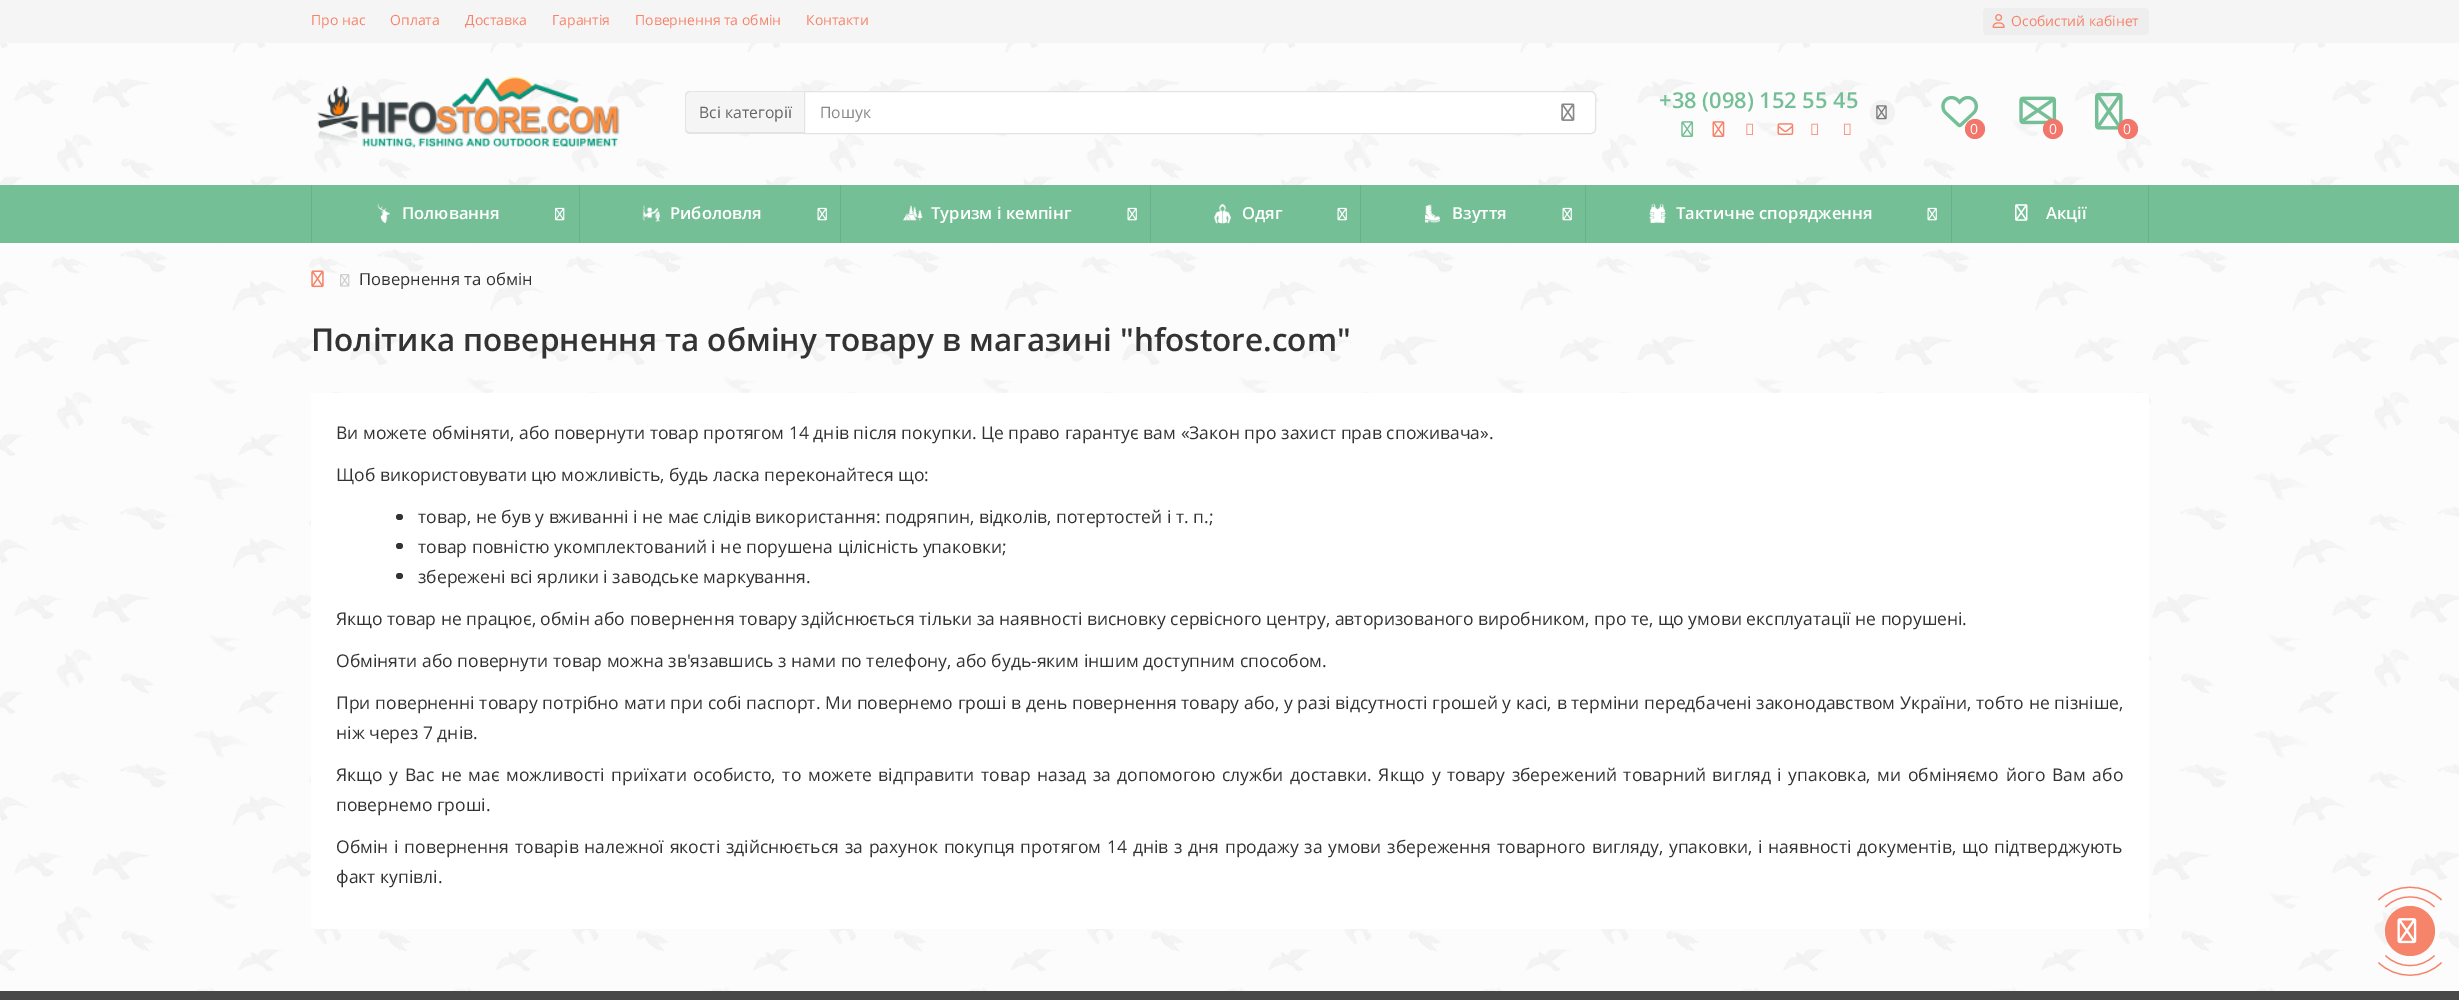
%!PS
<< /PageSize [2459 1000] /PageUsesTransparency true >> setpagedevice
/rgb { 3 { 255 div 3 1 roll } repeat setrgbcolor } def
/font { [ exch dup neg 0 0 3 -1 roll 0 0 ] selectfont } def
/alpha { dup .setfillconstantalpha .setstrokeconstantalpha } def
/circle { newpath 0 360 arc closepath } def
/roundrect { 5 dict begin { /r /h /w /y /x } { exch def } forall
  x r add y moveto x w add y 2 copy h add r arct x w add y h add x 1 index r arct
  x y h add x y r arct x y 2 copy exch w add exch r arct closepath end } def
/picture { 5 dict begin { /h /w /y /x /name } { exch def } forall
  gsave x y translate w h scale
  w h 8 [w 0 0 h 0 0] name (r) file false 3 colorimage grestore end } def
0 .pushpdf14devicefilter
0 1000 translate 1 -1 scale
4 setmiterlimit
255 255 255 rgb
0 0 2459 1000 rectfill
(img/1.rgb) 0 43 2459 948 picture
245 245 245 rgb
0 0 2459 43 rectfill
238 238 238 rgb
1983 8 166 27 4 roundrect fill
(img/2.rgb) 1992 14 13 14 picture
(img/3.rgb) 317 77 303 71 picture
242 242 242 rgb
1882.5 112.5 12.5 circle fill
(img/4.rgb) 1876 105 11 15 picture
(img/5.rgb) 1681 121 13 16 picture
(img/6.rgb) 1712 121 13 16 picture
(img/7.rgb) 1746 123 7 12 picture
(img/8.rgb) 1777 123 17 12 picture
(img/7.rgb) 1811 123 7 12 picture
(img/9.rgb) 1843 123 8 12 picture
245 245 245 rgb
690 91 moveto 804 91 lineto 804 134 lineto 690 134 lineto 687 134 685 132 685 129 curveto 685 96 lineto 685 93 687 91 690 91 curveto closepath fill
0.07 alpha
0 0 0 rgb
690 91 moveto 804 91 lineto 804 134 lineto 690 134 lineto 687 134 685 132 685 129 curveto 685 96 lineto 685 93 687 91 690 91 curveto closepath 690 92 moveto 804 92 lineto 804 132 lineto 690 132 lineto 688 132 686 131 686 129 curveto 686 96 lineto 686 94 688 92 690 92 curveto closepath eofill
1 alpha
255 255 255 rgb
804.5 91.5 moveto 1591 91.5 lineto 1593.5 91.5 1595.5 93.5 1595.5 96 curveto 1595.5 129 lineto 1595.5 131.5 1593.5 133.5 1591 133.5 curveto 804.5 133.5 lineto closepath gsave fill grestore
227 227 227 rgb
stroke
(img/10.rgb) 1561 103 14 18 picture
(img/11.rgb) 1941 95 37 33 picture
242 118 107 rgb
1975 129 10 circle fill
(img/12.rgb) 2019 96 38 29 picture
2053 129 10 circle fill
(img/13.rgb) 2095 92 28 38 picture
2128 129 10 circle fill
117 191 151 rgb
0 185 2459 58 rectfill
108 176 139 rgb
311 185 1 58 rectfill
(img/14.rgb) 377 203 13 21 picture
(img/15.rgb) 555 207 10 14 picture
579 185 1 58 rectfill
(img/16.rgb) 642 205 19 17 picture
(img/17.rgb) 817 207 10 14 picture
840 185 1 58 rectfill
(img/18.rgb) 902 205 21 16 picture
(img/17.rgb) 1127 207 10 14 picture
1150 185 1 58 rectfill
(img/19.rgb) 1214 203 17 21 picture
(img/17.rgb) 1337 207 10 14 picture
1360 185 1 58 rectfill
(img/20.rgb) 1425 204 15 19 picture
(img/17.rgb) 1562 207 10 14 picture
1585 185 1 58 rectfill
(img/21.rgb) 1649 203 17 21 picture
(img/17.rgb) 1927 207 10 14 picture
1951 185 1 58 rectfill
2148 185 1 58 rectfill
(img/22.rgb) 2015 204 13 17 picture
(img/23.rgb) 311 270 13 18 picture
(img/24.rgb) 340 274 10 13 picture
255 255 255 rgb
311 393 1838 536 5 roundrect fill
51 51 51 rgb
396 514 7 6 3 roundrect fill
396 543 7 6 3 roundrect fill
396 573 7 6 3 roundrect fill
246 132 106 rgb
2410 931 25 circle fill
1.2 setlinewidth
2385.5 907 moveto 2399 893.5 2421 893.5 2434.5 907 curveto stroke
2378.5 900 moveto 2395.5 883 2424.5 883 2441.5 900 curveto stroke
2434.5 955.5 moveto 2421 969 2399 969 2385.5 955.5 curveto stroke
2441.5 962.5 moveto 2424.5 979.5 2395.5 979.5 2378.5 962.5 curveto stroke
(img/25.rgb) 2397 918 20 26 picture
72 72 72 rgb
0 991 2459 9 rectfill
/OpenSans-Regular 14 font
246 132 106 rgb
[
  [(Про нас) 311 25]
  [(Оплата) 390 25]
  [(Доставка) 465 25]
  [(Гарантія) 552 25]
  [(Повернення та обмін) 635 25]
  [(Контакти) 806 25]
  [(Особистий кабінет) 2011 26]
] { aload pop moveto show } forall
/OpenSans-SemiBold 21.9 font
117 191 151 rgb
1659 108 moveto (+38 \(098\) 152 55 45) show
/OpenSans-Regular 15.75 font
102 102 102 rgb
699 118 moveto (Всі категорії) show
136 136 136 rgb
820 118 moveto (Пошук) show
/OpenSans-Regular 14 font
255 255 255 rgb
[
  [(0) 1970 134]
  [(0) 2049 134]
  [(0) 2123 134]
] { aload pop moveto show } forall
/OpenSans-SemiBold 16.6 font
[
  [(Полювання) 402 219]
  [(Риболовля) 670 219]
  [(Туризм і кемпінг) 931 219]
  [(Одяг) 1242 219]
  [(Взуття) 1452 219]
  [(Тактичне спорядження) 1676 219]
  [(Акції) 2046 219]
] { aload pop moveto show } forall
/OpenSans-Regular 16.6 font
51 51 51 rgb
359 285 moveto (Повернення та обмін) show
/OpenSans-SemiBold 31.5 font
311 351 moveto (Політика повернення та обміну товару в магазині "hfostore.com") show
/OpenSans-Regular 17.5 font
[
  [(Ви можете обміняти, або повернути товар протягом 14 днів після покупки. Це право гарантує вам «Закон про захист прав споживача».) 336 439]
  [(Щоб використовувати цю можливість, будь ласка переконайтеся що:) 336 481]
  [(товар, не був у вживанні і не має слідів використання: подряпин, відколів, потертостей і т. п.;) 418 523]
  [(товар повністю укомплектований і не порушена цілісність упаковки;) 418 553]
  [(збережені всі ярлики і заводське маркування.) 418 583]
  [(Якщо товар не працює, обмін або повернення товару здійснюється тільки за наявності висновку сервісного центру, авторизованого виробником, про те, що умови експлуатації не порушені.) 336 625]
  [(Обміняти або повернути товар можна зв'язавшись з нами по телефону, або будь-яким іншим доступним способом.) 336 667]
] { aload pop moveto show } forall
336 709 moveto 0.2 0 32 (При поверненні товару потрібно мати при собі паспорт. Ми повернемо гроші в день повернення товару або, у разі відсутності грошей у касі, в терміни передбачені законодавством України, тобто не пізніше,) widthshow
336 739 moveto (ніж через 7 днів.) show
336 781 moveto 2.1 0 32 (Якщо у Вас не має можливості приїхати особисто, то можете відправити товар назад за допомогою служби доставки. Якщо у товару збережений товарний вигляд і упаковка, ми обміняємо його Вам або) widthshow
336 811 moveto (повернемо гроші.) show
336 853 moveto 1.25 0 32 (Обмін і повернення товарів належної якості здійснюється за рахунок покупця протягом 14 днів з дня продажу за умови збереження товарного вигляду, упаковки, і наявності документів, що підтверджують) widthshow
336 883 moveto (факт купівлі.) show
.poppdf14devicefilter showpage
